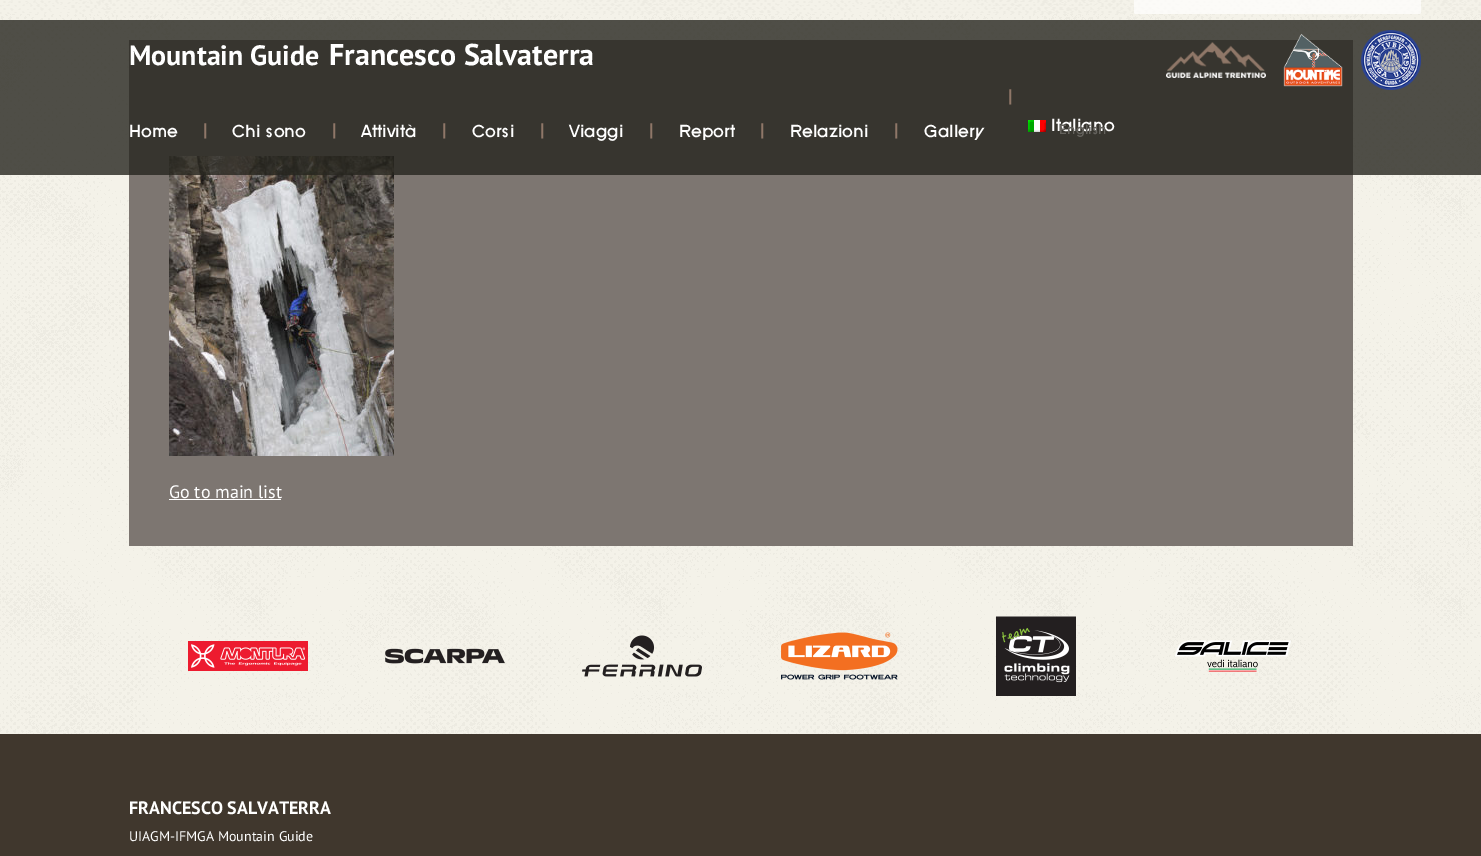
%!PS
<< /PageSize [1481 856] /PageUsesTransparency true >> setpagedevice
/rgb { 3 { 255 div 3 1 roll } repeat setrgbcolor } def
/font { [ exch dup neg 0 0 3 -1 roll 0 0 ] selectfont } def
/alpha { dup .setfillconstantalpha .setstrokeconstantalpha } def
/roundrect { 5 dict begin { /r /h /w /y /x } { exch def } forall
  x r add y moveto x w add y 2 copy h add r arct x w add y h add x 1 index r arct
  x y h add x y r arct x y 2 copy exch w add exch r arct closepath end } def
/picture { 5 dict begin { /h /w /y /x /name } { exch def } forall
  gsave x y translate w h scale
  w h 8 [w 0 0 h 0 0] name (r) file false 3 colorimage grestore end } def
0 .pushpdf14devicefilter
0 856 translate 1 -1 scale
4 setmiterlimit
255 255 255 rgb
0 0 1481 856 rectfill
(img/1.rgb) 0 14 1481 720 picture
(img/6.rgb) 0 0 1481 14 picture
0.7 alpha
1134 -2 287 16 2 roundrect fill
1 alpha
125 118 113 rgb
129 40 1224 506 rectfill
(img/7.rgb) 169 156 225 300 picture
0.8 alpha
38 37 30 rgb
0 20 1481 155 rectfill
1 alpha
(img/2.rgb) 1166 42 100 36 picture
(img/3.rgb) 1283 33 60 54 picture
(img/4.rgb) 1361 30 60 60 picture
(img/5.rgb) 1028 120 18 12 picture
255 255 255 rgb
169 499 112 1 rectfill
(img/8.rgb) 188 641 120 30 picture
(img/9.rgb) 385 648 120 16 picture
(img/10.rgb) 582 635 120 42 picture
(img/11.rgb) 781 632 117 48 picture
(img/12.rgb) 996 616 80 80 picture
(img/13.rgb) 1175 640 116 32 picture
64 55 45 rgb
0 734 1481 122 rectfill
/PTSans-Bold 28 font
255 255 255 rgb
129 65 moveto (Mountain Guide) show
/PTSans-Bold 30 font
329 65 moveto (Francesco Salvaterra) show
/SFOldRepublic-Bold 18 font
129 137 moveto (Home) show
143 119 104 rgb
203 137 moveto (|) show
255 255 255 rgb
232 137 moveto (Chi sono) show
143 119 104 rgb
332 137 moveto (|) show
255 255 255 rgb
361 137 moveto (Attività) show
143 119 104 rgb
442 137 moveto (|) show
255 255 255 rgb
472 137 moveto (Corsi) show
143 119 104 rgb
540 137 moveto (|) show
255 255 255 rgb
569 137 moveto (Viaggi) show
143 119 104 rgb
649 137 moveto (|) show
255 255 255 rgb
679 137 moveto (Report) show
143 119 104 rgb
760 137 moveto (|) show
255 255 255 rgb
790 137 moveto (Relazioni) show
143 119 104 rgb
894 137 moveto (|) show
255 255 255 rgb
924 137 moveto (Gallery) show
143 119 104 rgb
1008 103 moveto (|) show
255 255 255 rgb
1051 131 moveto (Italiano) show
/SFOldRepublic-Bold 14 font
100 98 93 rgb
1059 134 moveto (English) show
/PTSans-Regular 18 font
255 255 255 rgb
169 498 moveto (Go to main list) show
/PTSans-Bold 18 font
129 814 moveto (FRANCESCO SALVATERRA) show
/PTSans-Regular 14 font
129 841 moveto (UIAGM-IFMGA Mountain Guide) show
.poppdf14devicefilter showpage
